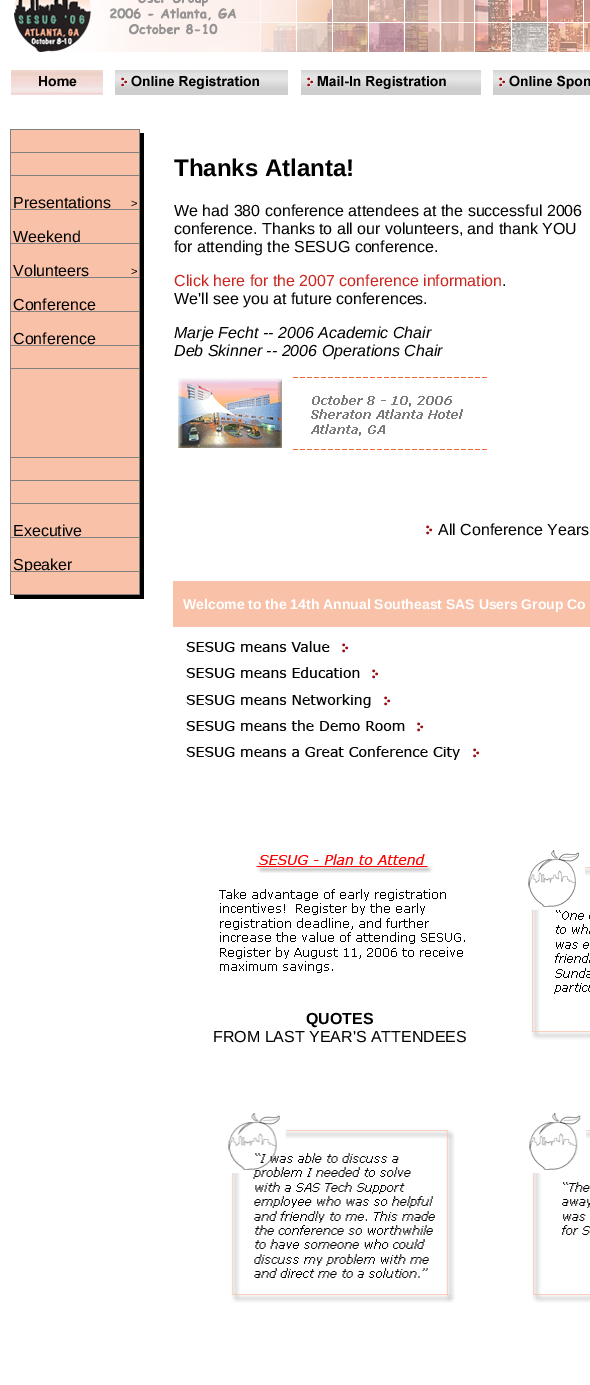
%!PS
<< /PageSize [590 1385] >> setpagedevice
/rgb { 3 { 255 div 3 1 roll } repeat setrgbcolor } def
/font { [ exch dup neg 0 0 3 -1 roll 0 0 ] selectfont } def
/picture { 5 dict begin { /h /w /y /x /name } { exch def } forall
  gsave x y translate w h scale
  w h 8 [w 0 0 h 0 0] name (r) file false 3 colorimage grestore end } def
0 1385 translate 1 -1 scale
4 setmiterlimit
255 255 255 rgb
0 0 590 1385 rectfill
0 0 0 rgb
14 133 130 466 rectfill
(img/1.rgb) 14 0 576 52 picture
(img/2.rgb) 11 70 92 25 picture
(img/3.rgb) 115 70 173 25 picture
(img/4.rgb) 301 70 180 25 picture
(img/5.rgb) 493 70 97 25 picture
(img/6.rgb) 178 377 309 73 picture
(img/7.rgb) 426 525 7 10 picture
250 193 169 rgb
173 581 417 46 rectfill
(img/8.rgb) 186 641 163 13 picture
(img/9.rgb) 186 664 195 15 picture
(img/10.rgb) 186 694 205 14 picture
(img/11.rgb) 186 720 238 12 picture
(img/12.rgb) 186 746 294 14 picture
(img/13.rgb) 219 854 246 119 picture
(img/14.rgb) 528 850 62 190 picture
(img/15.rgb) 228 1113 227 190 picture
(img/16.rgb) 529 1113 61 190 picture
[
  [10 129 130 466 128 128 128]
  [11 130 128 22 250 193 169]
  [11 153 128 22 250 193 169]
  [11 176 128 33 250 193 169]
  [11 210 128 33 250 193 169]
  [11 244 128 33 250 193 169]
  [11 278 128 33 250 193 169]
  [11 312 128 33 250 193 169]
  [11 346 128 22 250 193 169]
  [11 369 128 88 250 193 169]
  [11 458 128 22 250 193 169]
  [11 481 128 22 250 193 169]
  [11 504 128 33 250 193 169]
  [11 538 128 33 250 193 169]
] { aload pop rgb rectfill } forall
/LiberationSans-Bold 24 font
0 0 0 rgb
174 176 moveto (Thanks Atlanta!) show
/LiberationSans-Regular 16 font
[
  [(We had 380 conference attendees at the successful 2006) 174 216]
  [(conference. Thanks to all our volunteers, and thank YOU) 174 234]
  [(for attending the SESUG conference.) 174 252]
] { aload pop moveto show } forall
205 37 29 rgb
174 286 moveto (Click here for the 2007 conference information) show
0 0 0 rgb
502 286 moveto (.) show
174 304 moveto (We'll see you at future conferences.) show
/LiberationSans-Italic 16 font
174 338 moveto (Marje Fecht -- 2006 Academic Chair) show
174 356 moveto (Deb Skinner -- 2006 Operations Chair) show
/LiberationSans-Regular 16 font
438 535 moveto (All Conference Years) show
/LiberationSans-Bold 14 font
255 255 255 rgb
183 609 moveto (Welcome to the 14th Annual Southeast SAS Users Group Co) show
/LiberationSans-Bold 16 font
0 0 0 rgb
306 1024 moveto (QUOTES) show
/LiberationSans-Regular 16 font
213 1042 moveto (FROM LAST YEAR'S ATTENDEES) show
13 208 moveto (Presentations) show
/LiberationSans-Regular 11 font
131 207 moveto (>) show
/LiberationSans-Regular 16 font
13 242 moveto (Weekend) show
13 276 moveto (Volunteers) show
/LiberationSans-Regular 11 font
131 275 moveto (>) show
/LiberationSans-Regular 16 font
[
  [(Conference) 13 310]
  [(Conference) 13 344]
  [(Executive) 13 536]
  [(Speaker) 13 570]
] { aload pop moveto show } forall
250 193 169 rgb
11 572 128 22 rectfill
showpage
